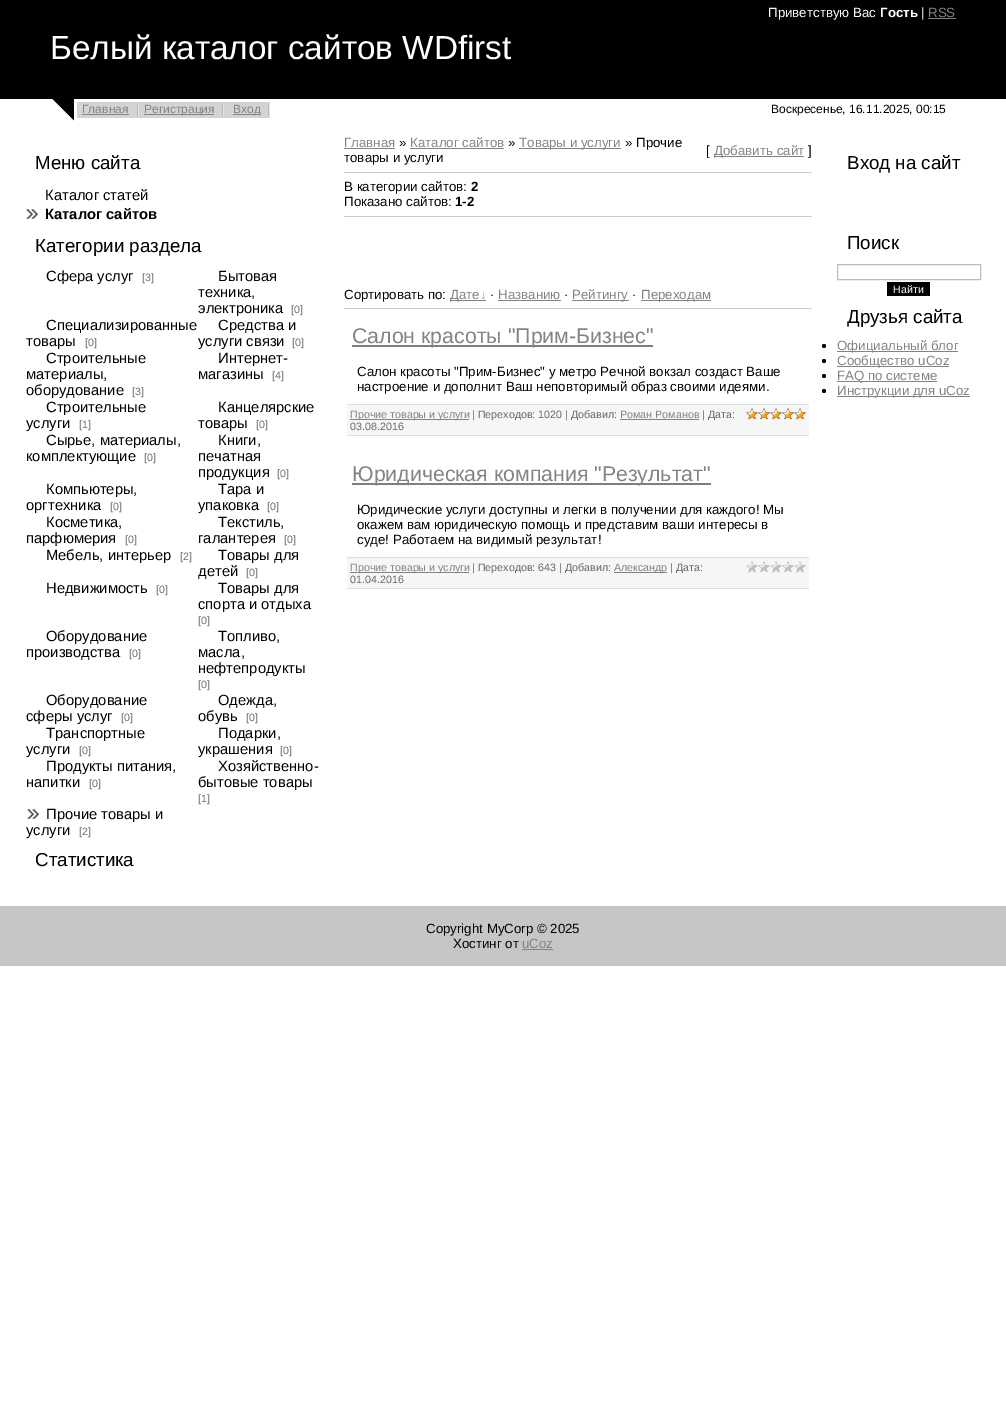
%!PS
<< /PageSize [1006 1427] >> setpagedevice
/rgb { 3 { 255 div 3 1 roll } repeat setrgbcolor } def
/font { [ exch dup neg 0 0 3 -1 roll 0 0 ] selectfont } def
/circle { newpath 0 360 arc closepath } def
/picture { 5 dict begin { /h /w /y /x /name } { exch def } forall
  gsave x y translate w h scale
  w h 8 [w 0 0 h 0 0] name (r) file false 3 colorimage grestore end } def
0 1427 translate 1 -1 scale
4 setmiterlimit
255 255 255 rgb
0 0 1006 1427 rectfill
0 0 0 rgb
0 0 1006 99 rectfill
131 131 131 rgb
928 18 28 1 rectfill
(img/1.rgb) 52 99 22 22 picture
212 212 212 rgb
77 102 193 16 rectfill
131 131 131 rgb
82 114 47 1 rectfill
(img/2.rgb) 137 104 2 12 picture
144 114 70 1 rectfill
(img/2.rgb) 222 104 2 12 picture
233 114 27 1 rectfill
(img/2.rgb) 268 104 2 12 picture
(img/3.rgb) 26 209 12 10 picture
(img/3.rgb) 27 809 12 10 picture
[
  [344 148 51 1 131 131 131]
  [410 148 94 1 131 131 131]
  [519 148 102 1 131 131 131]
  [714 156 90 1 131 131 131]
  [344 172 468 1 204 204 204]
  [344 216 468 1 204 204 204]
  [450 300 36 1 131 131 131]
  [498 300 63 1 131 131 131]
  [572 300 57 1 131 131 131]
  [641 300 70 1 131 131 131]
  [344 308 468 1 204 204 204]
  [352 345 301 2 126 126 126]
  [347 405 462 30 246 246 246]
  [347 404 462 1 221 221 221]
  [347 435 462 1 221 221 221]
  [350 419 119 1 131 131 131]
  [620 419 79 1 131 131 131]
] { aload pop rgb rectfill } forall
(img/4.rgb) 746 408 60 12 picture
(img/5.rgb) 746 408 60 12 picture
[
  [352 483 359 2 126 126 126]
  [347 558 462 30 246 246 246]
  [347 557 462 1 221 221 221]
  [347 588 462 1 221 221 221]
  [350 572 119 1 131 131 131]
  [614 572 53 1 131 131 131]
] { aload pop rgb rectfill } forall
(img/4.rgb) 746 561 60 12 picture
188 188 188 rgb
837.5 264.5 143 15 rectstroke
0 0 0 rgb
887 282 43 14 rectfill
824 346 2 circle fill
131 131 131 rgb
837 351 121 1 rectfill
0 0 0 rgb
824 361 2 circle fill
131 131 131 rgb
837 366 112 1 rectfill
0 0 0 rgb
824 376 2 circle fill
131 131 131 rgb
837 381 100 1 rectfill
0 0 0 rgb
824 391 2 circle fill
[
  [837 396 133 1 131 131 131]
  [0 906 1006 60 198 198 198]
  [522 949 31 1 131 131 131]
] { aload pop rgb rectfill } forall
/LiberationSans-Regular 13.3 font
255 255 255 rgb
768 17 moveto (Приветствую Вас) show
/LiberationSans-Bold 13.3 font
880 17 moveto (Гость) show
/LiberationSans-Regular 13.3 font
921 17 moveto (|) show
131 131 131 rgb
928 17 moveto (RSS) show
/LiberationSans-Regular 33.3 font
255 255 255 rgb
50 59 moveto (Белый каталог сайтов WDfirst) show
/LiberationSans-Regular 12 font
131 131 131 rgb
[
  [(Главная) 82 113]
  [(Регистрация) 144 113]
  [(Вход) 233 113]
] { aload pop moveto show } forall
0 0 0 rgb
771 113 moveto (Воскресенье, 16.11.2025, 00:15) show
/LiberationSans-Regular 18.75 font
35 169 moveto (Меню сайта) show
/LiberationSans-Regular 14.75 font
45 200 moveto (Каталог статей) show
/LiberationSans-Bold 14.75 font
45 219 moveto (Каталог сайтов) show
/LiberationSans-Regular 18.75 font
35 252 moveto (Категории раздела) show
/LiberationSans-Regular 14.75 font
46 281 moveto (Cфера услуг) show
/LiberationSans-Regular 10.7 font
110 110 110 rgb
142 281 moveto ([3]) show
/LiberationSans-Regular 14.75 font
0 0 0 rgb
[
  [(Бытовая) 218 281]
  [(техника,) 198 297]
  [(электроника) 198 313]
] { aload pop moveto show } forall
/LiberationSans-Regular 10.7 font
110 110 110 rgb
291 313 moveto ([0]) show
/LiberationSans-Regular 14.75 font
0 0 0 rgb
46 330 moveto (Специализированные) show
26 346 moveto (товары) show
/LiberationSans-Regular 10.7 font
110 110 110 rgb
85 346 moveto ([0]) show
/LiberationSans-Regular 14.75 font
0 0 0 rgb
218 330 moveto (Средства и) show
198 346 moveto (услуги связи) show
/LiberationSans-Regular 10.7 font
110 110 110 rgb
292 346 moveto ([0]) show
/LiberationSans-Regular 14.75 font
0 0 0 rgb
[
  [(Строительные) 46 363]
  [(материалы,) 26 379]
  [(оборудование) 26 395]
] { aload pop moveto show } forall
/LiberationSans-Regular 10.7 font
110 110 110 rgb
132 395 moveto ([3]) show
/LiberationSans-Regular 14.75 font
0 0 0 rgb
218 363 moveto (Интернет-) show
198 379 moveto (магазины) show
/LiberationSans-Regular 10.7 font
110 110 110 rgb
272 379 moveto ([4]) show
/LiberationSans-Regular 14.75 font
0 0 0 rgb
46 412 moveto (Строительные) show
26 428 moveto (услуги) show
/LiberationSans-Regular 10.7 font
110 110 110 rgb
79 428 moveto ([1]) show
/LiberationSans-Regular 14.75 font
0 0 0 rgb
218 412 moveto (Канцелярские) show
198 428 moveto (товары) show
/LiberationSans-Regular 10.7 font
110 110 110 rgb
256 428 moveto ([0]) show
/LiberationSans-Regular 14.75 font
0 0 0 rgb
46 445 moveto (Сырье, материалы,) show
26 461 moveto (комплектующие) show
/LiberationSans-Regular 10.7 font
110 110 110 rgb
144 461 moveto ([0]) show
/LiberationSans-Regular 14.75 font
0 0 0 rgb
[
  [(Книги,) 218 445]
  [(печатная) 198 461]
  [(продукция) 198 477]
] { aload pop moveto show } forall
/LiberationSans-Regular 10.7 font
110 110 110 rgb
277 477 moveto ([0]) show
/LiberationSans-Regular 14.75 font
0 0 0 rgb
46 494 moveto (Компьютеры,) show
26 510 moveto (оргтехника) show
/LiberationSans-Regular 10.7 font
110 110 110 rgb
110 510 moveto ([0]) show
/LiberationSans-Regular 14.75 font
0 0 0 rgb
218 494 moveto (Тара и) show
198 510 moveto (упаковка) show
/LiberationSans-Regular 10.7 font
110 110 110 rgb
267 510 moveto ([0]) show
/LiberationSans-Regular 14.75 font
0 0 0 rgb
46 527 moveto (Косметика,) show
26 543 moveto (парфюмерия) show
/LiberationSans-Regular 10.7 font
110 110 110 rgb
125 543 moveto ([0]) show
/LiberationSans-Regular 14.75 font
0 0 0 rgb
218 527 moveto (Текстиль,) show
198 543 moveto (галантерея) show
/LiberationSans-Regular 10.7 font
110 110 110 rgb
284 543 moveto ([0]) show
/LiberationSans-Regular 14.75 font
0 0 0 rgb
46 560 moveto (Мебель, интерьер) show
/LiberationSans-Regular 10.7 font
110 110 110 rgb
180 560 moveto ([2]) show
/LiberationSans-Regular 14.75 font
0 0 0 rgb
218 560 moveto (Товары для) show
198 576 moveto (детей) show
/LiberationSans-Regular 10.7 font
110 110 110 rgb
246 576 moveto ([0]) show
/LiberationSans-Regular 14.75 font
0 0 0 rgb
46 593 moveto (Недвижимость) show
/LiberationSans-Regular 10.7 font
110 110 110 rgb
156 593 moveto ([0]) show
/LiberationSans-Regular 14.75 font
0 0 0 rgb
218 593 moveto (Товары для) show
198 609 moveto (спорта и отдыха) show
/LiberationSans-Regular 10.7 font
110 110 110 rgb
198 624 moveto ([0]) show
/LiberationSans-Regular 14.75 font
0 0 0 rgb
46 641 moveto (Оборудование) show
26 657 moveto (производства) show
/LiberationSans-Regular 10.7 font
110 110 110 rgb
129 657 moveto ([0]) show
/LiberationSans-Regular 14.75 font
0 0 0 rgb
[
  [(Топливо,) 218 641]
  [(масла,) 198 657]
  [(нефтепродукты) 198 673]
] { aload pop moveto show } forall
/LiberationSans-Regular 10.7 font
110 110 110 rgb
198 688 moveto ([0]) show
/LiberationSans-Regular 14.75 font
0 0 0 rgb
46 705 moveto (Оборудование) show
26 721 moveto (сферы услуг) show
/LiberationSans-Regular 10.7 font
110 110 110 rgb
121 721 moveto ([0]) show
/LiberationSans-Regular 14.75 font
0 0 0 rgb
218 705 moveto (Одежда,) show
198 721 moveto (обувь) show
/LiberationSans-Regular 10.7 font
110 110 110 rgb
246 721 moveto ([0]) show
/LiberationSans-Regular 14.75 font
0 0 0 rgb
46 738 moveto (Транспортные) show
26 754 moveto (услуги) show
/LiberationSans-Regular 10.7 font
110 110 110 rgb
79 754 moveto ([0]) show
/LiberationSans-Regular 14.75 font
0 0 0 rgb
218 738 moveto (Подарки,) show
198 754 moveto (украшения) show
/LiberationSans-Regular 10.7 font
110 110 110 rgb
280 754 moveto ([0]) show
/LiberationSans-Regular 14.75 font
0 0 0 rgb
46 771 moveto (Продукты питания,) show
26 787 moveto (напитки) show
/LiberationSans-Regular 10.7 font
110 110 110 rgb
89 787 moveto ([0]) show
/LiberationSans-Regular 14.75 font
0 0 0 rgb
218 771 moveto (Хозяйственно-) show
198 787 moveto (бытовые товары) show
/LiberationSans-Regular 10.7 font
110 110 110 rgb
198 802 moveto ([1]) show
/LiberationSans-Regular 14.75 font
0 0 0 rgb
46 819 moveto (Прочие товары и) show
26 835 moveto (услуги) show
/LiberationSans-Regular 10.7 font
110 110 110 rgb
79 835 moveto ([2]) show
/LiberationSans-Regular 18.75 font
0 0 0 rgb
35 866 moveto (Статистика) show
/LiberationSans-Regular 13.3 font
131 131 131 rgb
344 147 moveto (Главная) show
0 0 0 rgb
399 147 moveto (») show
131 131 131 rgb
410 147 moveto (Каталог сайтов) show
0 0 0 rgb
508 147 moveto (») show
131 131 131 rgb
519 147 moveto (Товары и услуги) show
0 0 0 rgb
[
  [(» Прочие) 625 147]
  [(товары и услуги) 344 162]
  [([) 706 155]
] { aload pop moveto show } forall
131 131 131 rgb
714 155 moveto (Добавить сайт) show
0 0 0 rgb
808 155 moveto (]) show
344 191 moveto (В категории сайтов:) show
/LiberationSans-Bold 13.3 font
471 191 moveto (2) show
/LiberationSans-Regular 13.3 font
344 206 moveto (Показано сайтов:) show
/LiberationSans-Bold 13.3 font
455 206 moveto (1-2) show
/LiberationSans-Regular 13.3 font
344 299 moveto (Сортировать по:) show
131 131 131 rgb
450 299 moveto (Дате) show
160 160 160 rgb
480 299 moveto (↓) show
0 0 0 rgb
490 299 moveto (·) show
131 131 131 rgb
498 299 moveto (Названию) show
0 0 0 rgb
564 299 moveto (·) show
131 131 131 rgb
572 299 moveto (Рейтингу) show
0 0 0 rgb
632 299 moveto (·) show
131 131 131 rgb
641 299 moveto (Переходам) show
/LiberationSans-Regular 21.3 font
352 343 moveto (Салон красоты "Прим-Бизнес") show
/LiberationSans-Regular 13.3 font
0 0 0 rgb
357 376 moveto (Салон красоты "Прим-Бизнес" у метро Речной вокзал создаст Ваше) show
357 391 moveto (настроение и дополнит Ваш неповторимый образ своими идеями.) show
/LiberationSans-Regular 10.7 font
131 131 131 rgb
350 418 moveto (Прочие товары и услуги) show
102 102 102 rgb
472 418 moveto (| Переходов: 1020 | Добавил:) show
131 131 131 rgb
620 418 moveto (Роман Романов) show
102 102 102 rgb
702 418 moveto (| Дата:) show
350 430 moveto (03.08.2016) show
/LiberationSans-Regular 21.3 font
131 131 131 rgb
352 481 moveto (Юридическая компания "Результат") show
/LiberationSans-Regular 13.3 font
0 0 0 rgb
[
  [(Юридические услуги доступны и легки в получении для каждого! Мы) 357 514]
  [(окажем вам юридическую помощь и представим ваши интересы в) 357 529]
  [(суде! Работаем на видимый результат!) 357 544]
] { aload pop moveto show } forall
/LiberationSans-Regular 10.7 font
131 131 131 rgb
350 571 moveto (Прочие товары и услуги) show
102 102 102 rgb
472 571 moveto (| Переходов: 643 | Добавил:) show
131 131 131 rgb
614 571 moveto (Александр) show
102 102 102 rgb
670 571 moveto (| Дата:) show
350 583 moveto (01.04.2016) show
/LiberationSans-Regular 18.75 font
0 0 0 rgb
847 169 moveto (Вход на сайт) show
847 249 moveto (Поиск) show
/LiberationSans-Regular 10.7 font
255 255 255 rgb
893 293 moveto (Найти) show
/LiberationSans-Regular 18.75 font
0 0 0 rgb
847 323 moveto (Друзья сайта) show
/LiberationSans-Regular 13.3 font
131 131 131 rgb
[
  [(Официальный блог) 837 350]
  [(Сообщество uCoz) 837 365]
  [(FAQ по системе) 837 380]
  [(Инструкции для uCoz) 837 395]
] { aload pop moveto show } forall
0 0 0 rgb
426 933 moveto (Copyright MyCorp © 2025) show
453 948 moveto (Хостинг от) show
131 131 131 rgb
522 948 moveto (uCoz) show
showpage
